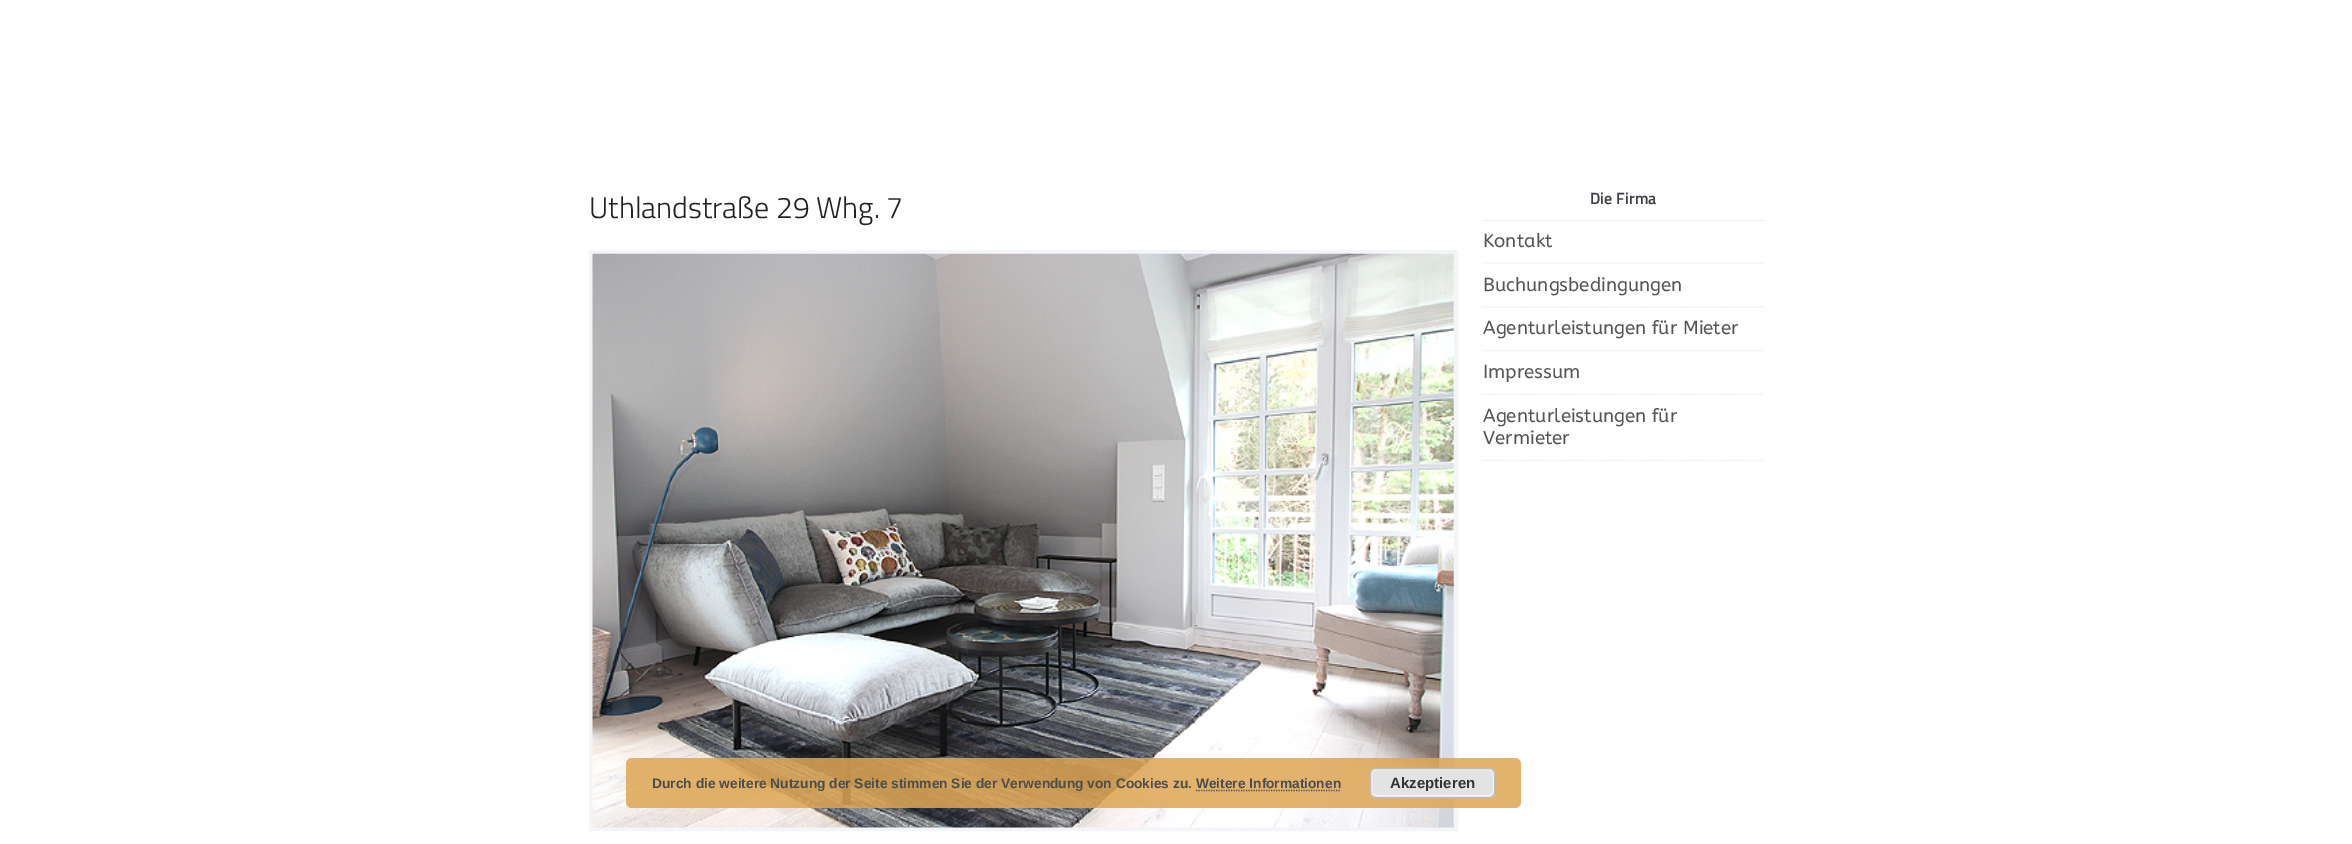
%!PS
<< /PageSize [2352 844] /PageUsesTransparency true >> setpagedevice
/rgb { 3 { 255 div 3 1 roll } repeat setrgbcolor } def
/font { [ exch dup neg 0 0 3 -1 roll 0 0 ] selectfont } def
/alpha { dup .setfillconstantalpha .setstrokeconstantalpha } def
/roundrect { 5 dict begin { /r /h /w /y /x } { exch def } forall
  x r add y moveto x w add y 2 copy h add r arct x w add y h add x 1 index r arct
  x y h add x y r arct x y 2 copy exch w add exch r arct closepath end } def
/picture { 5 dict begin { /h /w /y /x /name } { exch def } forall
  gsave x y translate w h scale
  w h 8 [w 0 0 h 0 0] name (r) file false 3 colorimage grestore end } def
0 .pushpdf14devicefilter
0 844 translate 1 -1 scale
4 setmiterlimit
255 255 255 rgb
0 0 2352 844 rectfill
243 245 248 rgb
4 setlinewidth
591 252 865 577 rectstroke
(img/1.rgb) 592 253 862 575 picture
238 238 238 rgb
1483 220 281 1 rectfill
236 236 236 rgb
1.2 setlinewidth
[1.25 1.25] 0 setdash
1482.5 263 moveto 1764 263 lineto stroke
1482.5 307 moveto 1764 307 lineto stroke
1482.5 350.5 moveto 1764 350.5 lineto stroke
1482.5 394.5 moveto 1764 394.5 lineto stroke
1482.5 460.5 moveto 1764 460.5 lineto stroke
0.85 alpha
221 166 84 rgb
626 758 895 50 6 roundrect fill
1 alpha
227 227 227 rgb
1370 768 125 30 6 roundrect fill
246 246 246 rgb
1 setlinewidth
[] 0 setdash
1371.5 769.5 122 26 4.5 roundrect stroke
187 187 187 rgb
1370.5 768.5 124 29 5.5 roundrect stroke
76 76 76 rgb
1.2 setlinewidth
[1.25 1.25] 0 setdash
1196 790.5 moveto 1341 790.5 lineto stroke
/TitilliumWeb-Light 30 font
34 34 34 rgb
589 218 moveto (Uthlandstraße 29 Whg. 7) show
/TitilliumWeb-SemiBold 16.25 font
59 62 68 rgb
1590 204 moveto (Die Firma) show
/ABeeZee-Regular 18.75 font
85 85 85 rgb
[
  [(Kontakt) 1483 247]
  [(Buchungsbedingungen) 1483 291]
  [(Agenturleistungen für Mieter) 1483 334]
  [(Impressum) 1483 378]
  [(Agenturleistungen für) 1483 422]
  [(Vermieter) 1483 444]
] { aload pop moveto show } forall
/LiberationSans-Bold 13.75 font
76 76 76 rgb
652 788 moveto (Durch die weitere Nutzung der Seite stimmen Sie der Verwendung von Cookies zu. Weitere Informationen) show
/LiberationSans-Bold 15 font
51 51 51 rgb
1390 788 moveto (Akzeptieren) show
.poppdf14devicefilter showpage
